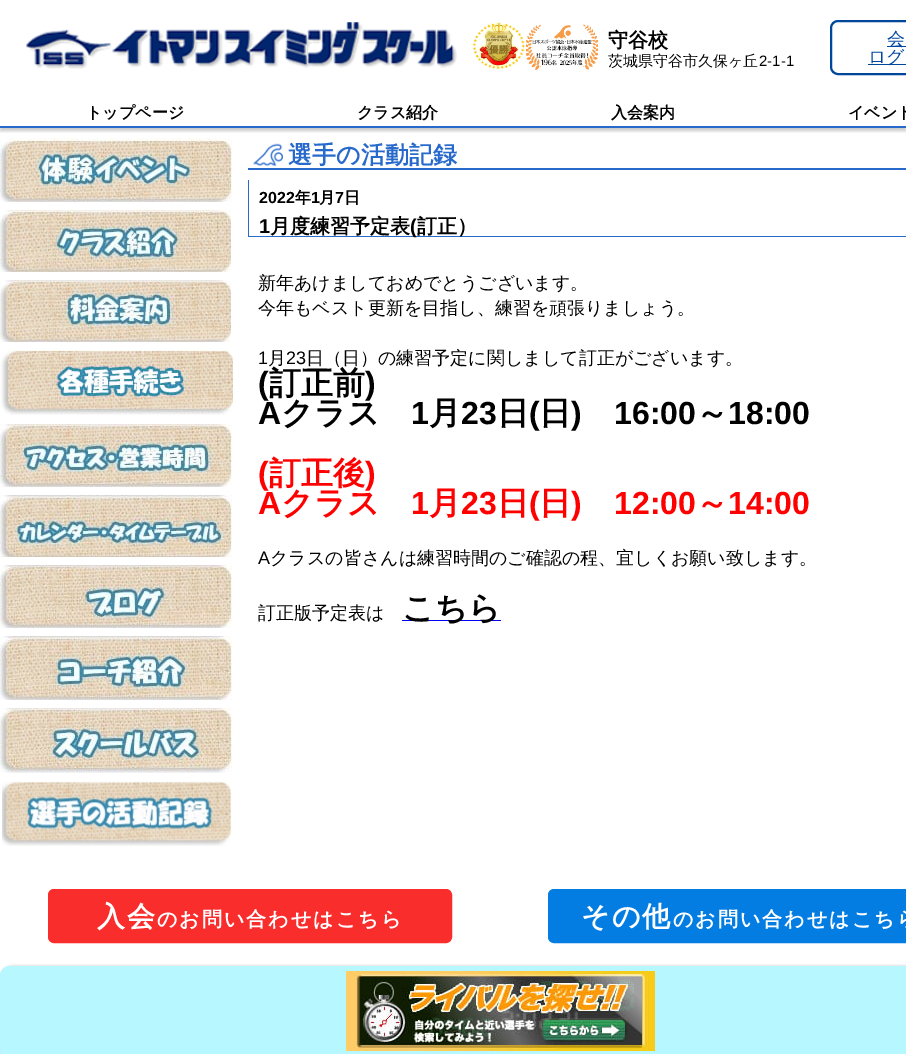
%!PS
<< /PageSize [906 1054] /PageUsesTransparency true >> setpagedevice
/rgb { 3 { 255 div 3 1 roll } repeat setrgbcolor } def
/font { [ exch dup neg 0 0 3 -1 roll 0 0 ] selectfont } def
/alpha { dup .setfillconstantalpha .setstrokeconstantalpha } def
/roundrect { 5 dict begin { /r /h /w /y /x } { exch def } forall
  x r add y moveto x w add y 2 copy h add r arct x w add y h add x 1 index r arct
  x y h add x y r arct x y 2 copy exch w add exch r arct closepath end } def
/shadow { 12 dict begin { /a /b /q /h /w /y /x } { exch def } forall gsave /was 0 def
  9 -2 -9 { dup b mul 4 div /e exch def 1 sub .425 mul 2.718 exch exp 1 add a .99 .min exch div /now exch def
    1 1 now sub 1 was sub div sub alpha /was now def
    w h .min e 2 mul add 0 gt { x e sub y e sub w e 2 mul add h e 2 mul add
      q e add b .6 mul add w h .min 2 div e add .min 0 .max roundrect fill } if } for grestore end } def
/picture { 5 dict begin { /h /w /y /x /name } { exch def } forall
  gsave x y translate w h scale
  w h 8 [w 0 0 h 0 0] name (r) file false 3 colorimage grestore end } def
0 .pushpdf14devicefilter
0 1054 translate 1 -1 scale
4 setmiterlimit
255 255 255 rgb
0 0 906 1054 rectfill
(img/1.rgb) 26 22 431 47 picture
(img/2.rgb) 472 21 54 49 picture
(img/3.rgb) 526 24 72 46 picture
0 70 155 rgb
2 setlinewidth
831 21 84 53 7 roundrect stroke
887 46 19 1 rectfill
868 64 38 1 rectfill
gsave
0 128 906 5 rectclip
0 0 0 rgb
0 98 906 33 0 1.5 0.2 shadow
grestore
40 106 204 rgb
0 126 906 2 rectfill
(img/4.rgb) 0 138 232 64 picture
(img/5.rgb) 0 210 231 62 picture
(img/6.rgb) 0 280 231 62 picture
(img/7.rgb) 0 350 233 65 picture
(img/8.rgb) 0 424 232 63 picture
(img/9.rgb) 0 495 232 62 picture
(img/10.rgb) 0 565 232 63 picture
(img/11.rgb) 0 636 232 64 picture
(img/12.rgb) 0 708 232 65 picture
(img/13.rgb) 2 781 230 65 picture
248 168 658 2 rectfill
(img/14.rgb) 253 143 30 24 picture
[
  [248 236 658 1 40 106 204]
  [248 180 1 57 40 106 204]
  [402 620 99 1 0 0 238]
] { aload pop rgb rectfill } forall
250 45 45 rgb
49 890 402 52 5 roundrect gsave fill grestore
stroke
4 125 227 rgb
549 890 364 52 5 roundrect gsave fill grestore
stroke
0 0 0 rgb
0 966 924 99 13 1.5 0.2 shadow
183 247 255 rgb
0 966 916 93 10 roundrect fill
(img/15.rgb) 346 971 309 80 picture
/WenQuanYiZenHei-Bold 20 font
0 0 0 rgb
608 47 moveto (守谷校) show
/WenQuanYiZenHei-Medium 15 font
608 66 moveto (茨城県守谷市久保ヶ丘) show
/LiberationSans-Regular 15 font
759 66 moveto (2-1-1) show
/WenQuanYiZenHei-Medium 18 font
0 70 155 rgb
887 45 moveto (会) show
868 63 moveto (ログ) show
/WenQuanYiZenHei-Bold 16 font
0 0 0 rgb
[
  [(トップページ) 86 118]
  [(クラス紹介) 357 118]
  [(入会案内) 611 118]
  [(イベント) 848 118]
] { aload pop moveto show } forall
/WenQuanYiZenHei-Bold 24 font
40 106 204 rgb
288 163 moveto (選手の活動記録) show
/LiberationSans-Bold 16 font
0 0 0 rgb
259 203 moveto (2022) show
/WenQuanYiZenHei-Bold 16 font
295 203 moveto (年) show
/LiberationSans-Bold 16 font
311 203 moveto (1) show
/WenQuanYiZenHei-Bold 16 font
319 203 moveto (月) show
/LiberationSans-Bold 16 font
335 203 moveto (7) show
/WenQuanYiZenHei-Bold 16 font
344 203 moveto (日) show
/LiberationSans-Bold 20 font
259 233 moveto (1) show
/WenQuanYiZenHei-Bold 20 font
270 233 moveto (月度練習予定表) show
/LiberationSans-Bold 20 font
410 233 moveto (\() show
/WenQuanYiZenHei-Bold 20 font
417 233 moveto (訂正）) show
/WenQuanYiZenHei-Medium 18 font
258 289 moveto (新年あけましておめでとうございます。) show
258 314 moveto (今年もベスト更新を目指し、練習を頑張りましょう。) show
/LiberationSans-Regular 18 font
258 364 moveto (1) show
/WenQuanYiZenHei-Medium 18 font
268 364 moveto (月) show
/LiberationSans-Regular 18 font
286 364 moveto (23) show
/WenQuanYiZenHei-Medium 18 font
306 364 moveto (日（日）の練習予定に関しまして訂正がございます。) show
/LiberationSans-Bold 32 font
258 394 moveto (\() show
/WenQuanYiZenHei-Bold 32 font
269 394 moveto (訂正前) show
/LiberationSans-Bold 32 font
365 394 moveto (\)) show
258 424 moveto (A) show
/WenQuanYiZenHei-Bold 32 font
281 424 moveto (クラス) show
/LiberationSans-Bold 32 font
411 424 moveto (1) show
/WenQuanYiZenHei-Bold 32 font
429 424 moveto (月) show
/LiberationSans-Bold 32 font
461 424 moveto (23) show
/WenQuanYiZenHei-Bold 32 font
497 424 moveto (日) show
/LiberationSans-Bold 32 font
529 424 moveto (\() show
/WenQuanYiZenHei-Bold 32 font
539 424 moveto (日) show
/LiberationSans-Bold 32 font
571 424 moveto (\)) show
614 424 moveto (16:00) show
/WenQuanYiZenHei-Bold 32 font
696 424 moveto (～) show
/LiberationSans-Bold 32 font
728 424 moveto (18:00) show
255 0 0 rgb
258 484 moveto (\() show
/WenQuanYiZenHei-Bold 32 font
269 484 moveto (訂正後) show
/LiberationSans-Bold 32 font
365 484 moveto (\)) show
258 514 moveto (A) show
/WenQuanYiZenHei-Bold 32 font
281 514 moveto (クラス) show
/LiberationSans-Bold 32 font
411 514 moveto (1) show
/WenQuanYiZenHei-Bold 32 font
429 514 moveto (月) show
/LiberationSans-Bold 32 font
461 514 moveto (23) show
/WenQuanYiZenHei-Bold 32 font
497 514 moveto (日) show
/LiberationSans-Bold 32 font
529 514 moveto (\() show
/WenQuanYiZenHei-Bold 32 font
539 514 moveto (日) show
/LiberationSans-Bold 32 font
571 514 moveto (\)) show
614 514 moveto (12:00) show
/WenQuanYiZenHei-Bold 32 font
696 514 moveto (～) show
/LiberationSans-Bold 32 font
728 514 moveto (14:00) show
/LiberationSans-Regular 18 font
0 0 0 rgb
258 564 moveto (A) show
/WenQuanYiZenHei-Medium 18 font
270 564 moveto (クラスの皆さんは練習時間のご確認の程、宜しくお願い致します。) show
258 619 moveto (訂正版予定表は) show
/WenQuanYiZenHei-Bold 32 font
402 619 moveto (こちら) show
/WenQuanYiZenHei-Bold 28 font
255 255 255 rgb
97 926 moveto 2 0 (入会) ashow
/WenQuanYiZenHei-Bold 20 font
157 926 moveto 2 0 (のお問い合わせはこちら) ashow
/WenQuanYiZenHei-Bold 28 font
581 926 moveto 2 0 (その他) ashow
/WenQuanYiZenHei-Bold 20 font
673 926 moveto 2 0 (のお問い合わせはこちら) ashow
.poppdf14devicefilter showpage
